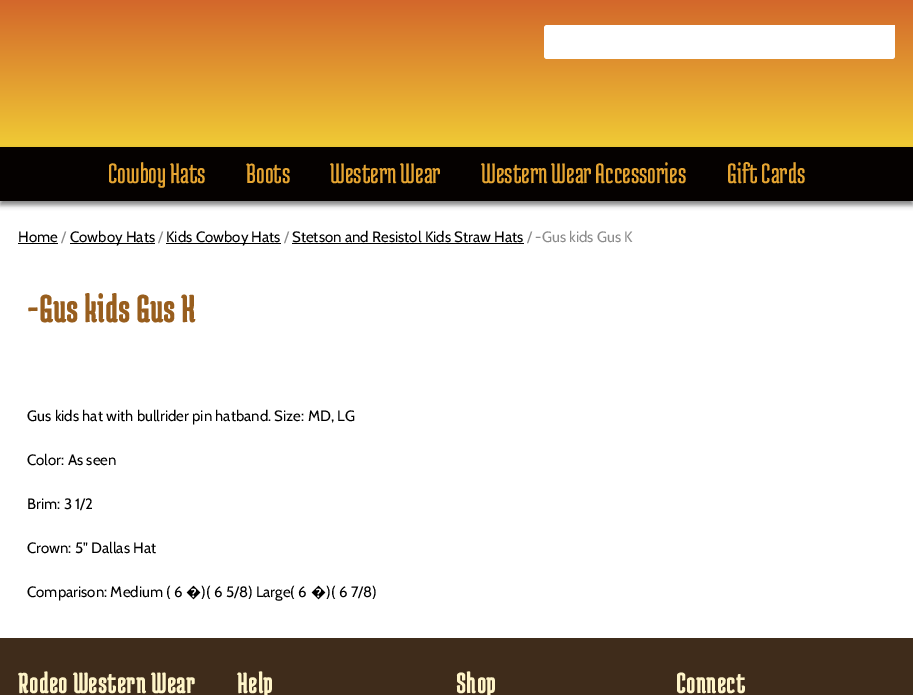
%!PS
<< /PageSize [913 695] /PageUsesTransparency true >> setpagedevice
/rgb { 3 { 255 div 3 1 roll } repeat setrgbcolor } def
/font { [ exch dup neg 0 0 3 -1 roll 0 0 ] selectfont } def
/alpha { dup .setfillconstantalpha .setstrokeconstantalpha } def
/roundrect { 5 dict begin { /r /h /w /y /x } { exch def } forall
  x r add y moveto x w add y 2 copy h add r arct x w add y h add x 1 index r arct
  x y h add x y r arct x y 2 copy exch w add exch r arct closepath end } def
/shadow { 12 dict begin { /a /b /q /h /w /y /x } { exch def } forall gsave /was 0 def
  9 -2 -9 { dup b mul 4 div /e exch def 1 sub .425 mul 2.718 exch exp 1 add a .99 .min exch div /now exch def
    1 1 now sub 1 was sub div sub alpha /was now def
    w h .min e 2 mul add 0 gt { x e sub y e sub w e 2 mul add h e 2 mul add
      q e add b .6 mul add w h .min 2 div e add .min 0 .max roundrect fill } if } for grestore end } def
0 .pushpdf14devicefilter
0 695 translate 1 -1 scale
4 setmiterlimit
255 255 255 rgb
0 0 913 695 rectfill
gsave 0 0 moveto 913 0 lineto 913 147 lineto 0 147 lineto closepath clip newpath
<< /ShadingType 2 /ColorSpace /DeviceRGB /Coords [457 -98 457 147] /Extend [true true] /Function << /FunctionType 2 /Domain [0 1] /C0 [0.753 0.141 0.145] /C1 [0.941 0.796 0.208] /N 1 >> >> shfill grestore
544 25 351 34 3 roundrect fill
892 25 3 32 rectfill
0 0 0 rgb
0 151 913 54 0 2.5 0.48 shadow
[
  [0 147 913 54 5 1 0]
  [18 243 40 1 0 0 0]
  [70 243 85 1 0 0 0]
  [166 243 115 1 0 0 0]
  [292 243 232 1 0 0 0]
  [0 638 913 57 63 44 27]
] { aload pop rgb rectfill } forall
/MedulaOne-Regular 30 font
229 164 49 rgb
[
  [(Cowboy Hats) 108 183]
  [(Boots) 246 183]
  [(Western Wear) 330 183]
  [(Western Wear Accessories) 481 183]
  [(Gift Cards) 727 183]
] { aload pop moveto show } forall
/Cabin-Regular 15 font
0 0 0 rgb
18 242 moveto (Home) show
140 140 140 rgb
61 242 moveto (/) show
0 0 0 rgb
70 242 moveto (Cowboy Hats) show
140 140 140 rgb
158 242 moveto (/) show
0 0 0 rgb
166 242 moveto (Kids Cowboy Hats) show
140 140 140 rgb
284 242 moveto (/) show
0 0 0 rgb
292 242 moveto (Stetson and Resistol Kids Straw Hats) show
140 140 140 rgb
527 242 moveto (/ -Gus kids Gus K) show
/MedulaOne-Bold 40 font
152 94 30 rgb
27 322 moveto 1 0 (-Gus kids Gus K) ashow
/Cabin-Regular 15 font
0 0 0 rgb
[
  [(Gus kids hat with bullrider pin hatband. Size: MD, LG) 27 421]
  [(Color: As seen) 27 465]
  [(Brim: 3 1/2) 27 509]
  [(Crown: 5" Dallas Hat) 27 553]
  [(Comparison: Medium \( 6) 27 597]
] { aload pop moveto show } forall
/NotoSans-Regular 15 font
186 597 moveto (�) show
/Cabin-Regular 15 font
201 597 moveto (\)\( 6 5/8\) Large\( 6) show
/NotoSans-Regular 15 font
311 597 moveto (�) show
/Cabin-Regular 15 font
326 597 moveto (\)\( 6 7/8\)) show
/MedulaOne-Bold 30 font
255 245 201 rgb
18 693 moveto 1 0 (Rodeo Western Wear) ashow
237 693 moveto 1 0 (Help) ashow
456 693 moveto 1 0 (Shop) ashow
676 693 moveto 1 0 (Connect) ashow
.poppdf14devicefilter showpage
